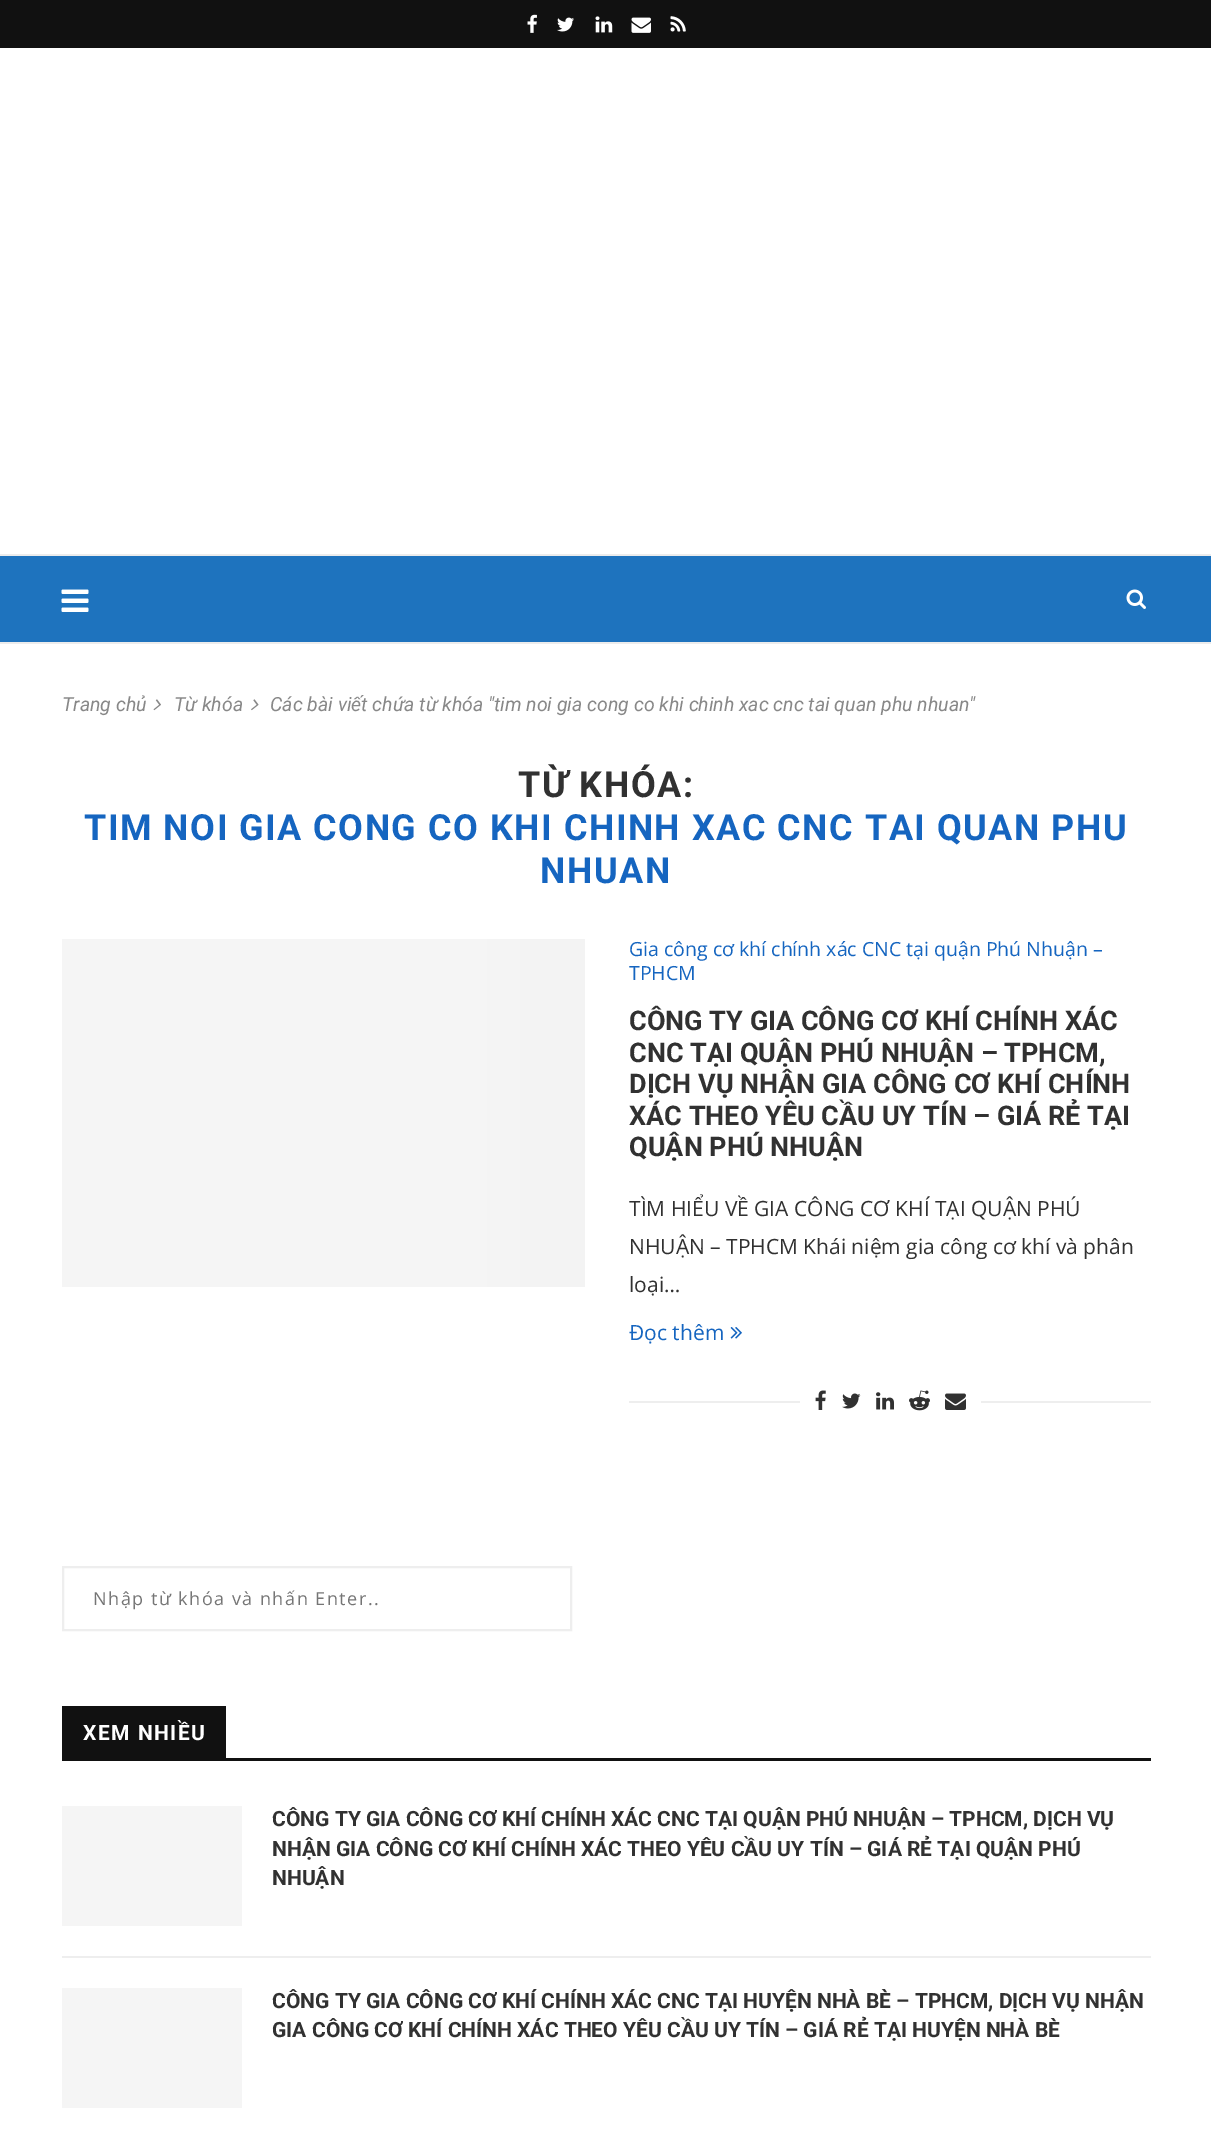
%!PS
<< /PageSize [1211 2137] >> setpagedevice
/rgb { 3 { 255 div 3 1 roll } repeat setrgbcolor } def
/font { [ exch dup neg 0 0 3 -1 roll 0 0 ] selectfont } def
/picture { 5 dict begin { /h /w /y /x /name } { exch def } forall
  gsave x y translate w h scale
  w h 8 [w 0 0 h 0 0] name (r) file false 3 colorimage grestore end } def
0 2137 translate 1 -1 scale
4 setmiterlimit
255 255 255 rgb
0 0 1211 2137 rectfill
17 17 17 rgb
0 0 1211 48 rectfill
(img/1.rgb) 527 14 10 19 picture
(img/2.rgb) 557 17 17 15 picture
(img/3.rgb) 595 16 18 17 picture
(img/4.rgb) 631 17 20 16 picture
(img/5.rgb) 670 16 16 16 picture
[
  [0 556 1211 86 30 115 190]
  [0 554 1211 2 236 236 236]
  [0 642 1211 2 236 236 236]
] { aload pop rgb rectfill } forall
(img/6.rgb) 61 589 28 23 picture
(img/7.rgb) 1126 589 20 20 picture
(img/8.rgb) 153 699 8 12 picture
(img/9.rgb) 251 699 8 12 picture
gsave 62 939 moveto 585 939 lineto 585 1287 lineto 62 1287 lineto closepath clip newpath
<< /ShadingType 2 /ColorSpace /DeviceRGB /Coords [998 1113 -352 1113] /Extend [true true] /Function << /FunctionType 3 /Domain [0 1] /Functions [<< /FunctionType 2 /Domain [0 1] /C0 [0.961 0.961 0.961] /C1 [0.937 0.937 0.937] /N 1 >> << /FunctionType 2 /Domain [0 1] /C0 [0.937 0.937 0.937] /C1 [0.961 0.961 0.961] /N 1 >> << /FunctionType 2 /Domain [0 1] /C0 [0.961 0.961 0.961] /C1 [0.961 0.961 0.961] /N 1 >>] /Bounds [0.15 0.4] /Encode [0 1 0 1 0 1] >> >> shfill grestore
(img/10.rgb) 730 1327 12 12 picture
238 238 238 rgb
629 1401 522 2 rectfill
255 255 255 rgb
800 1401 181 2 rectfill
(img/11.rgb) 815 1390 11 20 picture
(img/12.rgb) 842 1393 19 16 picture
(img/13.rgb) 876 1392 18 18 picture
(img/14.rgb) 909 1390 21 21 picture
(img/15.rgb) 945 1393 21 17 picture
238 238 238 rgb
2 setlinewidth
63 1567 508 63 rectstroke
[
  [62 1758 1089 3 17 17 17]
  [65 1708 159 50 17 17 17]
  [62 1706 163 2 17 17 17]
  [224 1706 2 55 17 17 17]
  [62 1706 3 55 17 17 17]
  [62 1956 1089 2 238 238 238]
  [62 1806 180 120 245 245 245]
  [62 1988 180 120 245 245 245]
] { aload pop rgb rectfill } forall
/Roboto-Italic 19.5 font
136 136 136 rgb
[
  [(Trang chủ) 62 711]
  [(Từ khóa) 174 711]
  [(Các bài viết chứa từ khóa "tim noi gia cong co khi chinh xac cnc tai quan phu nhuan") 270 711]
] { aload pop moveto show } forall
/Roboto-Bold 36 font
49 49 49 rgb
518 797 moveto 1.5 0 (TỪ KHÓA:) ashow
21 101 192 rgb
84 840 moveto 1.5 0 (TIM NOI GIA CONG CO KHI CHINH XAC CNC TAI QUAN PHU) ashow
540 883 moveto 1.5 0 (NHUAN) ashow
/OpenSans-Regular 19.5 font
629 956 moveto (Gia công cơ khí chính xác CNC tại quận Phú Nhuận –) show
629 980 moveto (TPHCM) show
/Roboto-Bold 27 font
49 49 49 rgb
[
  [(CÔNG TY GIA CÔNG CƠ KHÍ CHÍNH XÁC) 629 1030]
  [(CNC TẠI QUẬN PHÚ NHUẬN – TPHCM,) 629 1062]
  [(DỊCH VỤ NHẬN GIA CÔNG CƠ KHÍ CHÍNH) 629 1093]
  [(XÁC THEO YÊU CẦU UY TÍN – GIÁ RẺ TẠI) 629 1125]
  [(QUẬN PHÚ NHUẬN) 629 1156]
] { aload pop moveto show } forall
/OpenSans-Regular 21 font
[
  [(TÌM HIỂU VỀ GIA CÔNG CƠ KHÍ TẠI QUẬN PHÚ) 629 1216]
  [(NHUẬN – TPHCM Khái niệm gia công cơ khí và phân) 629 1254]
  [(loại…) 629 1292]
] { aload pop moveto show } forall
21 101 192 rgb
629 1340 moveto (Đọc thêm) show
/OpenSans-Regular 18 font
117 117 117 rgb
93 1605 moveto 1.5 0 (Nhập từ khóa và nhấn Enter..) ashow
/Roboto-Bold 21 font
255 255 255 rgb
83 1740 moveto 1.5 0 (XEM NHIỀU) ashow
49 49 49 rgb
[
  [(CÔNG TY GIA CÔNG CƠ KHÍ CHÍNH XÁC CNC TẠI QUẬN PHÚ NHUẬN – TPHCM, DỊCH VỤ) 272 1826]
  [(NHẬN GIA CÔNG CƠ KHÍ CHÍNH XÁC THEO YÊU CẦU UY TÍN – GIÁ RẺ TẠI QUẬN PHÚ) 272 1856]
  [(NHUẬN) 272 1885]
  [(CÔNG TY GIA CÔNG CƠ KHÍ CHÍNH XÁC CNC TẠI HUYỆN NHÀ BÈ – TPHCM, DỊCH VỤ NHẬN) 272 2008]
  [(GIA CÔNG CƠ KHÍ CHÍNH XÁC THEO YÊU CẦU UY TÍN – GIÁ RẺ TẠI HUYỆN NHÀ BÈ) 272 2037]
] { aload pop moveto show } forall
showpage
